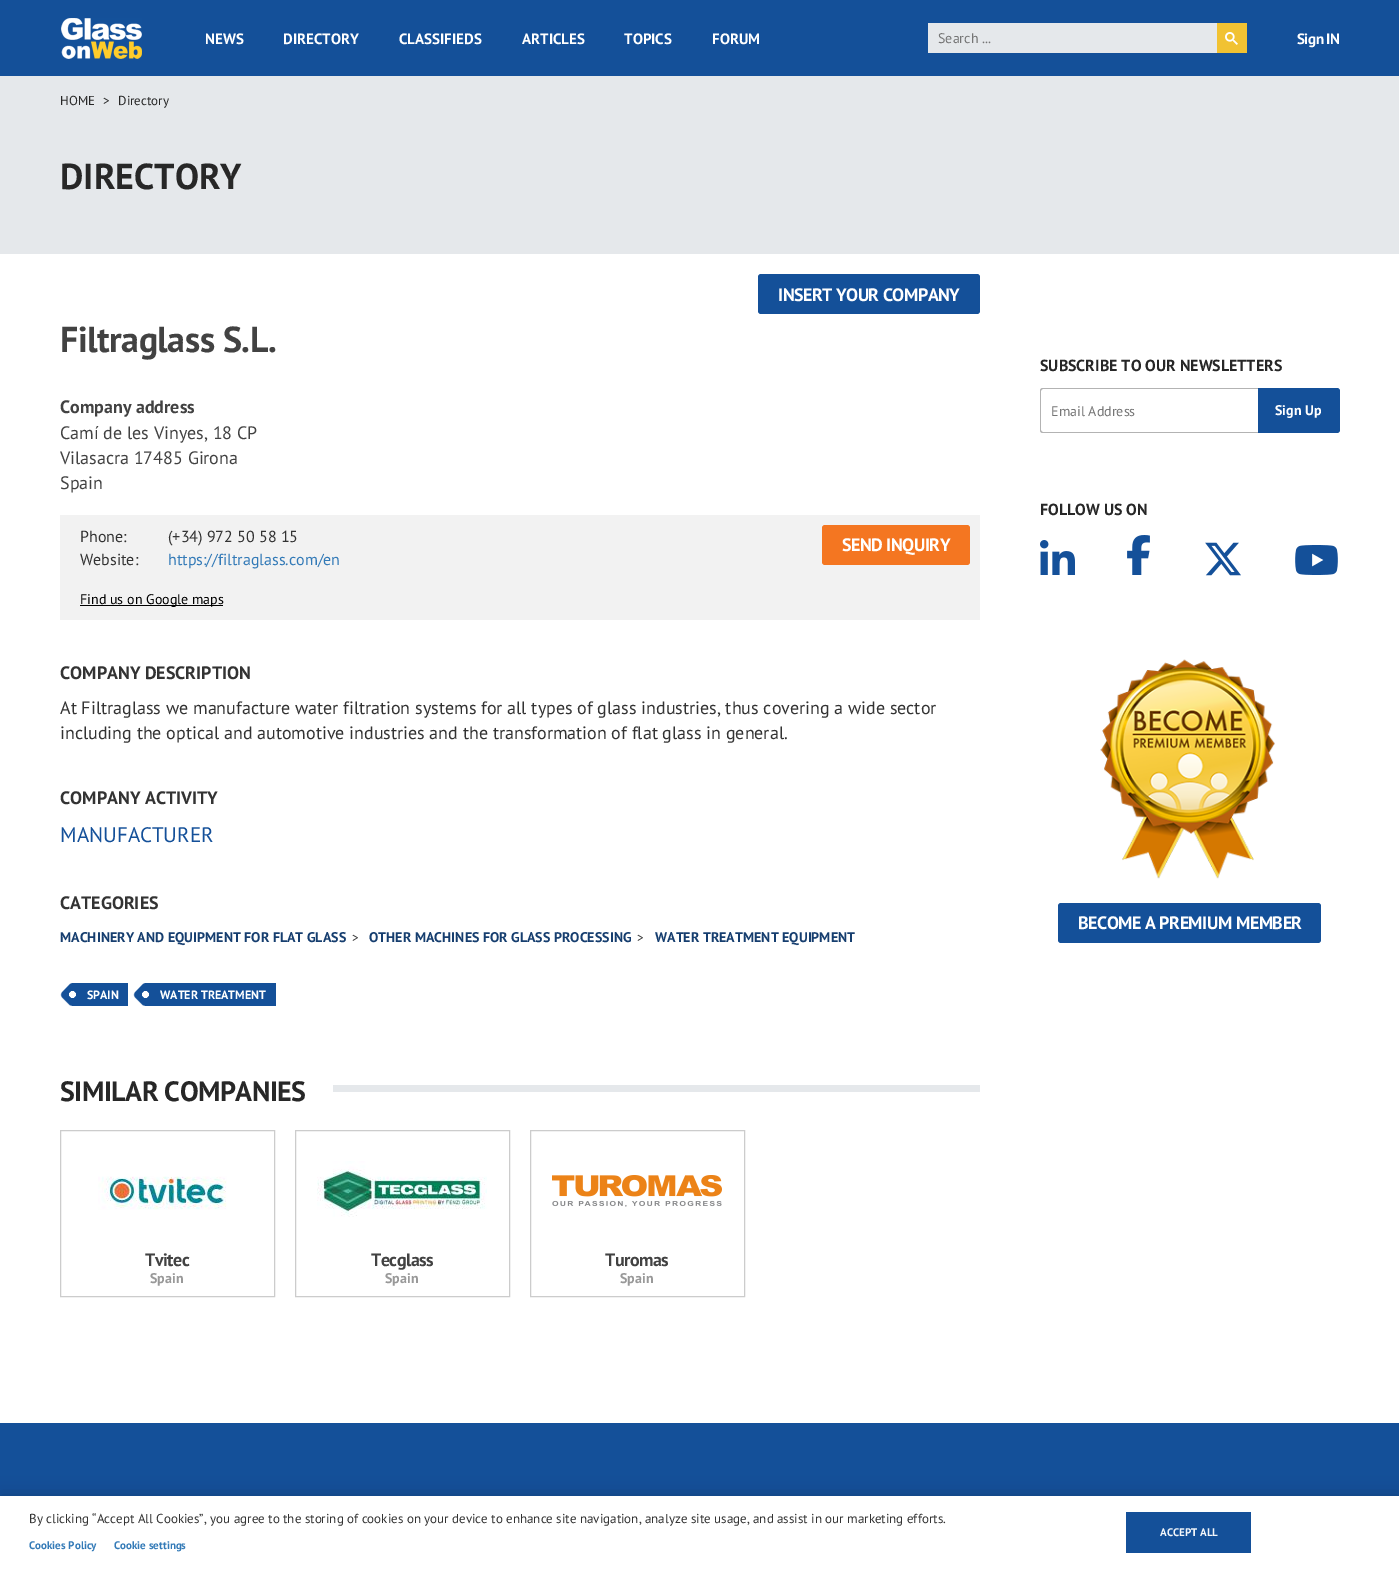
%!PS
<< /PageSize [1399 1569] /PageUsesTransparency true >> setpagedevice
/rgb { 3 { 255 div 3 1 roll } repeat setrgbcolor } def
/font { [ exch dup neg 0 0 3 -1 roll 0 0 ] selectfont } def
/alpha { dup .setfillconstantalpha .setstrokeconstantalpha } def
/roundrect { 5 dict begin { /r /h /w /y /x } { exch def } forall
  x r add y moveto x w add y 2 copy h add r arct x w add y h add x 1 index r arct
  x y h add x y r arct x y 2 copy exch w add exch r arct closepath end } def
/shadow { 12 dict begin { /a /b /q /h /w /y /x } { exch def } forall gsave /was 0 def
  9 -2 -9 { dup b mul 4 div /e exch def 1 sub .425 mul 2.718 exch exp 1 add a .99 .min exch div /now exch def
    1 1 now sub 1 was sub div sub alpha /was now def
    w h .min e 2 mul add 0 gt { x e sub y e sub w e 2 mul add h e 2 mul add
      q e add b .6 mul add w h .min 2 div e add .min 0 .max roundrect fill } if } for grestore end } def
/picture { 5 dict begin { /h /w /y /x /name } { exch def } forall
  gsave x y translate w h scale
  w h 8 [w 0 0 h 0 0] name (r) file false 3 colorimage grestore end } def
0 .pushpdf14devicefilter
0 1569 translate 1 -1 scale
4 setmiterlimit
255 255 255 rgb
0 0 1399 1569 rectfill
20 80 153 rgb
0 0 1399 76 rectfill
(img/1.rgb) 61 18 81 41 picture
229 232 235 rgb
928 23 289 30 rectfill
241 194 50 rgb
1217 23 30 30 rectfill
(img/2.rgb) 1225 32 13 13 picture
229 232 235 rgb
0 76 1399 178 rectfill
20 80 153 rgb
758 274 222 40 3 roundrect fill
242 242 242 rgb
60 515 920 105 rectfill
244 118 33 rgb
822 525 148 40 3 roundrect fill
0 0 0 rgb
80 605 143 1 rectfill
20 80 153 rgb
83 983 45 23 rectfill
(img/3.rgb) 60 983 23 23 picture
156 983 120 23 rectfill
(img/3.rgb) 133 983 23 23 picture
229 232 235 rgb
333 1085 647 7 rectfill
204 204 204 rgb
60.5 1130.5 214 166 rectstroke
(img/4.rgb) 98 1176 129 34 picture
295.5 1130.5 214 166 rectstroke
(img/5.rgb) 317 1161 170 56 picture
530.5 1130.5 214 166 rectstroke
(img/6.rgb) 552 1175 170 32 picture
179 179 179 rgb
1043 388 moveto 1258 388 lineto 1258 433 lineto 1043 433 lineto 1041 433 1040 432 1040 430 curveto 1040 391 lineto 1040 389 1041 388 1043 388 curveto closepath 1043 389 moveto 1258 389 lineto 1258 432 lineto 1043 432 lineto 1042 432 1041 431 1041 430 curveto 1041 391 lineto 1041 390 1042 389 1043 389 curveto closepath eofill
20 80 153 rgb
1258 388 moveto 1337 388 lineto 1338.5 388 1340 389.5 1340 391 curveto 1340 430 lineto 1340 431.5 1338.5 433 1337 433 curveto 1258 433 lineto closepath fill
(img/7.rgb) 1040 540 35 35 picture
(img/8.rgb) 1127 535 23 40 picture
(img/9.rgb) 1205 542 36 34 picture
(img/10.rgb) 1295 545 43 30 picture
(img/11.rgb) 1100 659 175 220 picture
1058 903 263 40 3 roundrect fill
0 1423 1399 73 rectfill
0 0 0 rgb
0 1496 1399 73 0 9 0.2 shadow
255 255 255 rgb
0 1496 1399 73 rectfill
20 80 153 rgb
1126 1512 125 41 rectfill
/PTSans-Bold 15 font
255 255 255 rgb
[
  [(NEWS) 205 44]
  [(DIRECTORY) 283 44]
  [(CLASSIFIEDS) 399 44]
  [(ARTICLES) 522 44]
  [(TOPICS) 624 44]
  [(FORUM) 712 44]
] { aload pop moveto show } forall
/PTSans-Regular 14 font
117 117 117 rgb
938 43 moveto (Search ...) show
/PTSans-Bold 15 font
255 255 255 rgb
1297 44 moveto -0.5 0 (Sign IN) ashow
/PTSans-Regular 13 font
39 39 39 rgb
[
  [(HOME) 60 105]
  [(>) 103 105]
  [(Directory) 118 105]
] { aload pop moveto show } forall
/PTSans-Bold 36 font
60 189 moveto (DIRECTORY) show
/PTSans-Bold 18 font
255 255 255 rgb
778 301 moveto -0.5 0 (INSERT YOUR COMPANY) ashow
66 66 66 rgb
60 413 moveto (Company address) show
/PTSans-Regular 18 font
[
  [(Camí de les Vinyes, 18 CP) 60 439]
  [(Vilasacra 17485 Girona) 60 464]
  [(Spain) 60 489]
] { aload pop moveto show } forall
/PTSans-Regular 16 font
51 51 51 rgb
80 542 moveto (Phone:) show
168 542 moveto (\(+34\) 972 50 58 15) show
/PTSans-Bold 18 font
255 255 255 rgb
842 551 moveto -0.5 0 (SEND INQUIRY) ashow
/PTSans-Regular 16 font
51 51 51 rgb
80 565 moveto (Website:) show
51 122 183 rgb
168 565 moveto (https://filtraglass.com/en) show
/PTSans-Regular 14 font
0 0 0 rgb
80 604 moveto (Find us on Google maps) show
/PTSans-Bold 18 font
51 51 51 rgb
60 679 moveto (COMPANY DESCRIPTION) show
/PTSans-Regular 18 font
60 714 moveto (At Filtraglass we manufacture water filtration systems for all types of glass industries, thus covering a wide sector) show
60 739 moveto (including the optical and automotive industries and the transformation of flat glass in general.) show
/PTSans-Bold 18 font
60 804 moveto (COMPANY ACTIVITY) show
/PTSans-Regular 21 font
20 80 153 rgb
60 842 moveto (MANUFACTURER) show
/PTSans-Bold 18 font
51 51 51 rgb
60 909 moveto (CATEGORIES) show
/PTSans-Bold 14 font
22 62 111 rgb
60 942 moveto (MACHINERY AND EQUIPMENT FOR FLAT GLASS) show
/PTSans-Regular 13 font
51 51 51 rgb
352 942 moveto (>) show
/PTSans-Bold 14 font
22 62 111 rgb
369 942 moveto (OTHER MACHINES FOR GLASS PROCESSING) show
/PTSans-Regular 13 font
51 51 51 rgb
637 942 moveto (>) show
/PTSans-Bold 14 font
22 62 111 rgb
655 942 moveto (WATER TREATMENT EQUIPMENT) show
/PTSans-Bold 12 font
255 255 255 rgb
87 999 moveto (SPAIN) show
160 999 moveto (WATER TREATMENT) show
/PTSans-Bold 28 font
39 39 39 rgb
60 1101 moveto -0.5 0 (SIMILAR COMPANIES) ashow
/PTSans-Bold 18 font
66 66 66 rgb
145 1266 moveto -0.5 0 (Tvitec) ashow
/PTSans-Bold 14 font
153 153 153 rgb
150 1283 moveto (Spain) show
/PTSans-Bold 18 font
66 66 66 rgb
371 1266 moveto -0.5 0 (Tecglass) ashow
/PTSans-Bold 14 font
153 153 153 rgb
385 1283 moveto (Spain) show
/PTSans-Bold 18 font
66 66 66 rgb
605 1266 moveto -0.5 0 (Turomas) ashow
/PTSans-Bold 14 font
153 153 153 rgb
620 1283 moveto (Spain) show
/PTSans-Bold 36 font
66 66 66 rgb
60 352 moveto -0.5 0 (Filtraglass S.L.) ashow
/PTSans-Bold 16 font
39 39 39 rgb
1040 371 moveto (SUBSCRIBE TO OUR NEWSLETTERS) show
/PTSans-Regular 14 font
117 117 117 rgb
1051 416 moveto (Email Address) show
/PTSans-Bold 14 font
255 255 255 rgb
1275 415 moveto (Sign Up) show
/PTSans-Bold 16 font
39 39 39 rgb
1040 515 moveto (FOLLOW US ON) show
/PTSans-Bold 18 font
255 255 255 rgb
1078 929 moveto -0.5 0 (BECOME A PREMIUM MEMBER) ashow
/PTSans-Regular 13 font
51 51 51 rgb
29 1523 moveto (By clicking “Accept All Cookies”, you agree to the storing of cookies on your device to enhance site navigation, analyze site usage, and assist in our marketing efforts.) show
/PTSans-Bold 11 font
51 122 183 rgb
29 1549 moveto (Cookies Policy) show
114 1549 moveto (Cookie settings) show
243 246 250 rgb
1160 1536 moveto (ACCEPT ALL) show
.poppdf14devicefilter showpage
